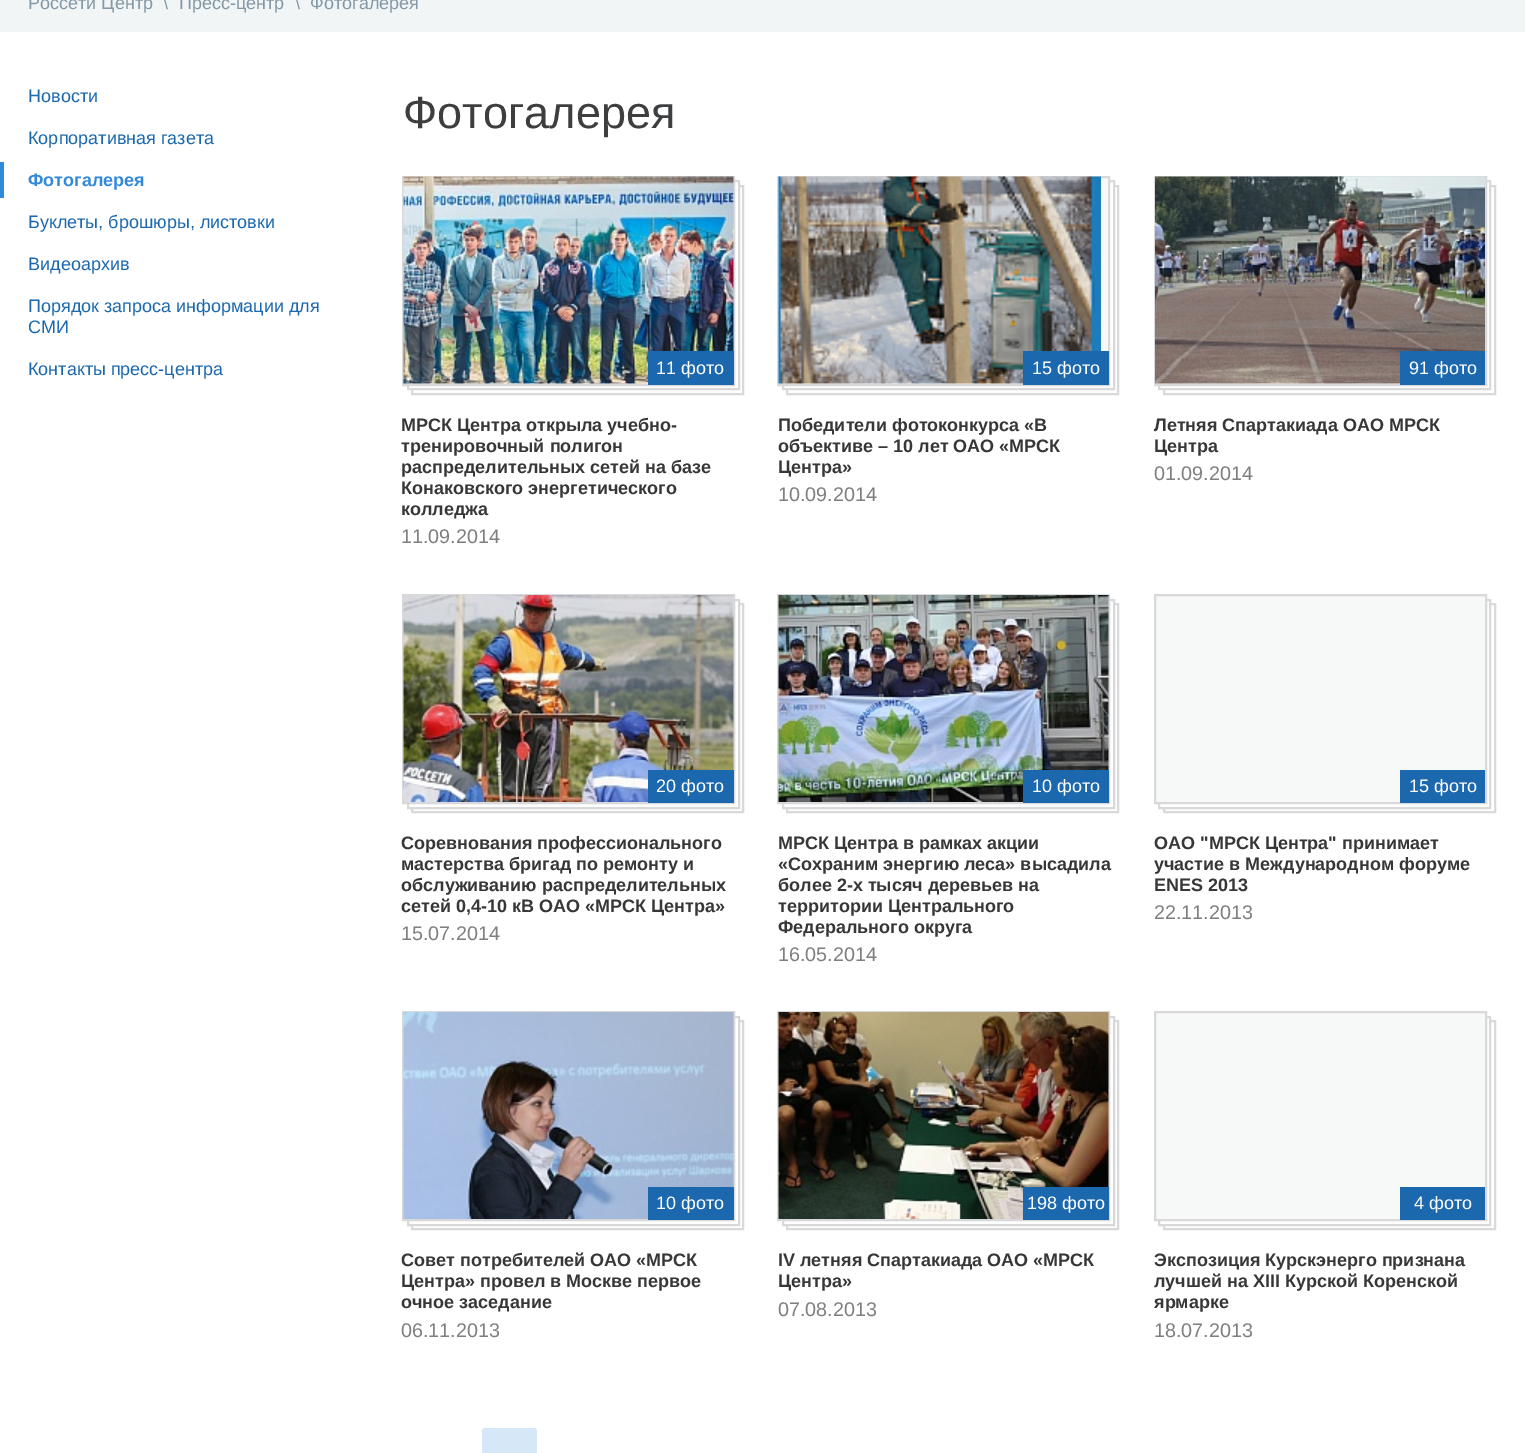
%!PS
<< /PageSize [1525 1453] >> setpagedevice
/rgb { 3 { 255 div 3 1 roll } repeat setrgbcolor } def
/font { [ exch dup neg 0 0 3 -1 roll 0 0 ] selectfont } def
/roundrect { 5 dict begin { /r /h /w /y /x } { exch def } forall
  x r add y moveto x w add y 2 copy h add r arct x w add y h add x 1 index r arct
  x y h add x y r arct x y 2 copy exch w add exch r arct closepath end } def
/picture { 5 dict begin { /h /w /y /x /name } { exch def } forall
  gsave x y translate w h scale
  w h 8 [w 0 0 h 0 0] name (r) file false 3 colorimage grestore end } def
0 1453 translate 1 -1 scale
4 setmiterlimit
255 255 255 rgb
0 0 1525 1453 rectfill
242 245 246 rgb
0 0 1525 32 rectfill
49 137 218 rgb
0 162 4 36 rectfill
217 216 218 rgb
2 setlinewidth
412 186 331 208 rectstroke
255 255 255 rgb
411 185 327 203 rectfill
217 216 218 rgb
408 181 331 208 rectstroke
247 248 248 rgb
404 383 244 1 rectfill
217 216 218 rgb
403 177 331 208 rectstroke
(img/1.rgb) 403 176 331 208 picture
27 104 174 rgb
648 351 86 34 rectfill
217 216 218 rgb
787 186 331 208 rectstroke
255 255 255 rgb
786 185 327 203 rectfill
217 216 218 rgb
783 181 331 208 rectstroke
247 248 248 rgb
778 177 moveto 1109 177 lineto 1109 385 lineto 778 385 lineto closepath gsave fill grestore
217 216 218 rgb
stroke
(img/2.rgb) 778 176 323 208 picture
27 104 174 rgb
1023 351 86 34 rectfill
217 216 218 rgb
1164 186 331 208 rectstroke
255 255 255 rgb
1163 185 326 203 rectfill
217 216 218 rgb
1159 181 331 208 rectstroke
247 248 248 rgb
1156 383 244 1 rectfill
217 216 218 rgb
1155 177 331 208 rectstroke
(img/3.rgb) 1155 176 330 208 picture
27 104 174 rgb
1400 351 85 34 rectfill
217 216 218 rgb
412 604 331 208 rectstroke
255 255 255 rgb
411 603 327 204 rectfill
217 216 218 rgb
408 600 331 208 rectstroke
403 595 331 208 rectstroke
(img/4.rgb) 403 595 331 207 picture
27 104 174 rgb
648 770 86 33 rectfill
217 216 218 rgb
787 604 331 208 rectstroke
255 255 255 rgb
786 603 327 204 rectfill
217 216 218 rgb
783 600 331 208 rectstroke
778 595 331 208 rectstroke
(img/5.rgb) 778 595 331 207 picture
27 104 174 rgb
1023 770 86 33 rectfill
217 216 218 rgb
1164 604 331 208 rectstroke
255 255 255 rgb
1163 603 326 204 rectfill
217 216 218 rgb
1159 600 331 208 rectstroke
247 248 248 rgb
1155 595 moveto 1486 595 lineto 1486 803 lineto 1155 803 lineto closepath gsave fill grestore
217 216 218 rgb
stroke
27 104 174 rgb
1400 770 85 33 rectfill
217 216 218 rgb
412 1021 331 208 rectstroke
255 255 255 rgb
411 1020 327 204 rectfill
217 216 218 rgb
408 1017 331 208 rectstroke
403 1012 331 208 rectstroke
(img/6.rgb) 403 1012 331 207 picture
27 104 174 rgb
648 1187 86 33 rectfill
217 216 218 rgb
787 1021 331 208 rectstroke
255 255 255 rgb
786 1020 327 204 rectfill
217 216 218 rgb
783 1017 331 208 rectstroke
778 1012 331 208 rectstroke
(img/7.rgb) 778 1012 331 207 picture
27 104 174 rgb
1023 1187 86 33 rectfill
217 216 218 rgb
1164 1021 331 208 rectstroke
255 255 255 rgb
1163 1020 326 204 rectfill
217 216 218 rgb
1159 1017 331 208 rectstroke
247 248 248 rgb
1155 1012 moveto 1486 1012 lineto 1486 1220 lineto 1155 1220 lineto closepath gsave fill grestore
217 216 218 rgb
stroke
27 104 174 rgb
1400 1187 85 33 rectfill
214 231 248 rgb
482 1428 55 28 3 roundrect fill
/LiberationSans-Regular 18 font
132 153 167 rgb
[
  [(Россети Центр) 28 9]
  [(\\) 163 9]
  [(Пресс-центр) 179 9]
  [(\\) 295 9]
  [(Фотогалерея) 310 9]
] { aload pop moveto show } forall
27 104 174 rgb
28 102 moveto (Новости) show
28 144 moveto (Корпоративная газета) show
/LiberationSans-Bold 18 font
49 137 218 rgb
28 186 moveto (Фотогалерея) show
/LiberationSans-Regular 18 font
27 104 174 rgb
[
  [(Буклеты, брошюры, листовки) 28 228]
  [(Видеоархив) 28 270]
  [(Порядок запроса информации для) 28 312]
  [(СМИ) 28 333]
  [(Контакты пресс-центра) 28 375]
] { aload pop moveto show } forall
/LiberationSans-Regular 45 font
60 62 64 rgb
403 128 moveto (Фотогалерея) show
/LiberationSans-Regular 18 font
255 255 255 rgb
656 374 moveto (11 фото) show
/LiberationSans-Bold 18 font
55 55 55 rgb
[
  [(МРСК Центра открыла учебно-) 401 431]
  [(тренировочный полигон) 401 452]
  [(распределительных сетей на базе) 401 473]
  [(Конаковского энергетического) 401 494]
  [(колледжа) 401 515]
] { aload pop moveto show } forall
/LiberationSans-Regular 19.75 font
127 127 127 rgb
401 543 moveto (11.09.2014) show
/LiberationSans-Regular 18 font
255 255 255 rgb
1032 374 moveto (15 фото) show
/LiberationSans-Bold 18 font
55 55 55 rgb
[
  [(Победители фотоконкурса «В) 778 431]
  [(объективе – 10 лет ОАО «МРСК) 778 452]
  [(Центра») 778 473]
] { aload pop moveto show } forall
/LiberationSans-Regular 19.75 font
127 127 127 rgb
778 501 moveto (10.09.2014) show
/LiberationSans-Regular 18 font
255 255 255 rgb
1409 374 moveto (91 фото) show
/LiberationSans-Bold 18 font
55 55 55 rgb
1154 431 moveto (Летняя Спартакиада ОАО МРСК) show
1154 452 moveto (Центра) show
/LiberationSans-Regular 19.75 font
127 127 127 rgb
1154 480 moveto (01.09.2014) show
/LiberationSans-Regular 18 font
255 255 255 rgb
656 792 moveto (20 фото) show
/LiberationSans-Bold 18 font
55 55 55 rgb
[
  [(Соревнования профессионального) 401 849]
  [(мастерства бригад по ремонту и) 401 870]
  [(обслуживанию распределительных) 401 891]
  [(сетей 0,4-10 кВ ОАО «МРСК Центра») 401 912]
] { aload pop moveto show } forall
/LiberationSans-Regular 19.75 font
127 127 127 rgb
401 940 moveto (15.07.2014) show
/LiberationSans-Regular 18 font
255 255 255 rgb
1032 792 moveto (10 фото) show
/LiberationSans-Bold 18 font
55 55 55 rgb
[
  [(МРСК Центра в рамках акции) 778 849]
  [(«Сохраним энергию леса» высадила) 778 870]
  [(более 2-х тысяч деревьев на) 778 891]
  [(территории Центрального) 778 912]
  [(Федерального округа) 778 933]
] { aload pop moveto show } forall
/LiberationSans-Regular 19.75 font
127 127 127 rgb
778 961 moveto (16.05.2014) show
/LiberationSans-Regular 18 font
255 255 255 rgb
1409 792 moveto (15 фото) show
/LiberationSans-Bold 18 font
55 55 55 rgb
[
  [(ОАО "МРСК Центра" принимает) 1154 849]
  [(участие в Международном форуме) 1154 870]
  [(ENES 2013) 1154 891]
] { aload pop moveto show } forall
/LiberationSans-Regular 19.75 font
127 127 127 rgb
1154 919 moveto (22.11.2013) show
/LiberationSans-Regular 18 font
255 255 255 rgb
656 1209 moveto (10 фото) show
/LiberationSans-Bold 18 font
55 55 55 rgb
[
  [(Совет потребителей ОАО «МРСК) 401 1266]
  [(Центра» провел в Москве первое) 401 1287]
  [(очное заседание) 401 1308]
] { aload pop moveto show } forall
/LiberationSans-Regular 19.75 font
127 127 127 rgb
401 1337 moveto (06.11.2013) show
/LiberationSans-Regular 18 font
255 255 255 rgb
1027 1209 moveto (198 фото) show
/LiberationSans-Bold 18 font
55 55 55 rgb
778 1266 moveto (IV летняя Спартакиада ОАО «МРСК) show
778 1287 moveto (Центра») show
/LiberationSans-Regular 19.75 font
127 127 127 rgb
778 1316 moveto (07.08.2013) show
/LiberationSans-Regular 18 font
255 255 255 rgb
1414 1209 moveto (4 фото) show
/LiberationSans-Bold 18 font
55 55 55 rgb
[
  [(Экспозиция Курскэнерго признана) 1154 1266]
  [(лучшей на XIII Курской Коренской) 1154 1287]
  [(ярмарке) 1154 1308]
] { aload pop moveto show } forall
/LiberationSans-Regular 19.75 font
127 127 127 rgb
1154 1337 moveto (18.07.2013) show
showpage
